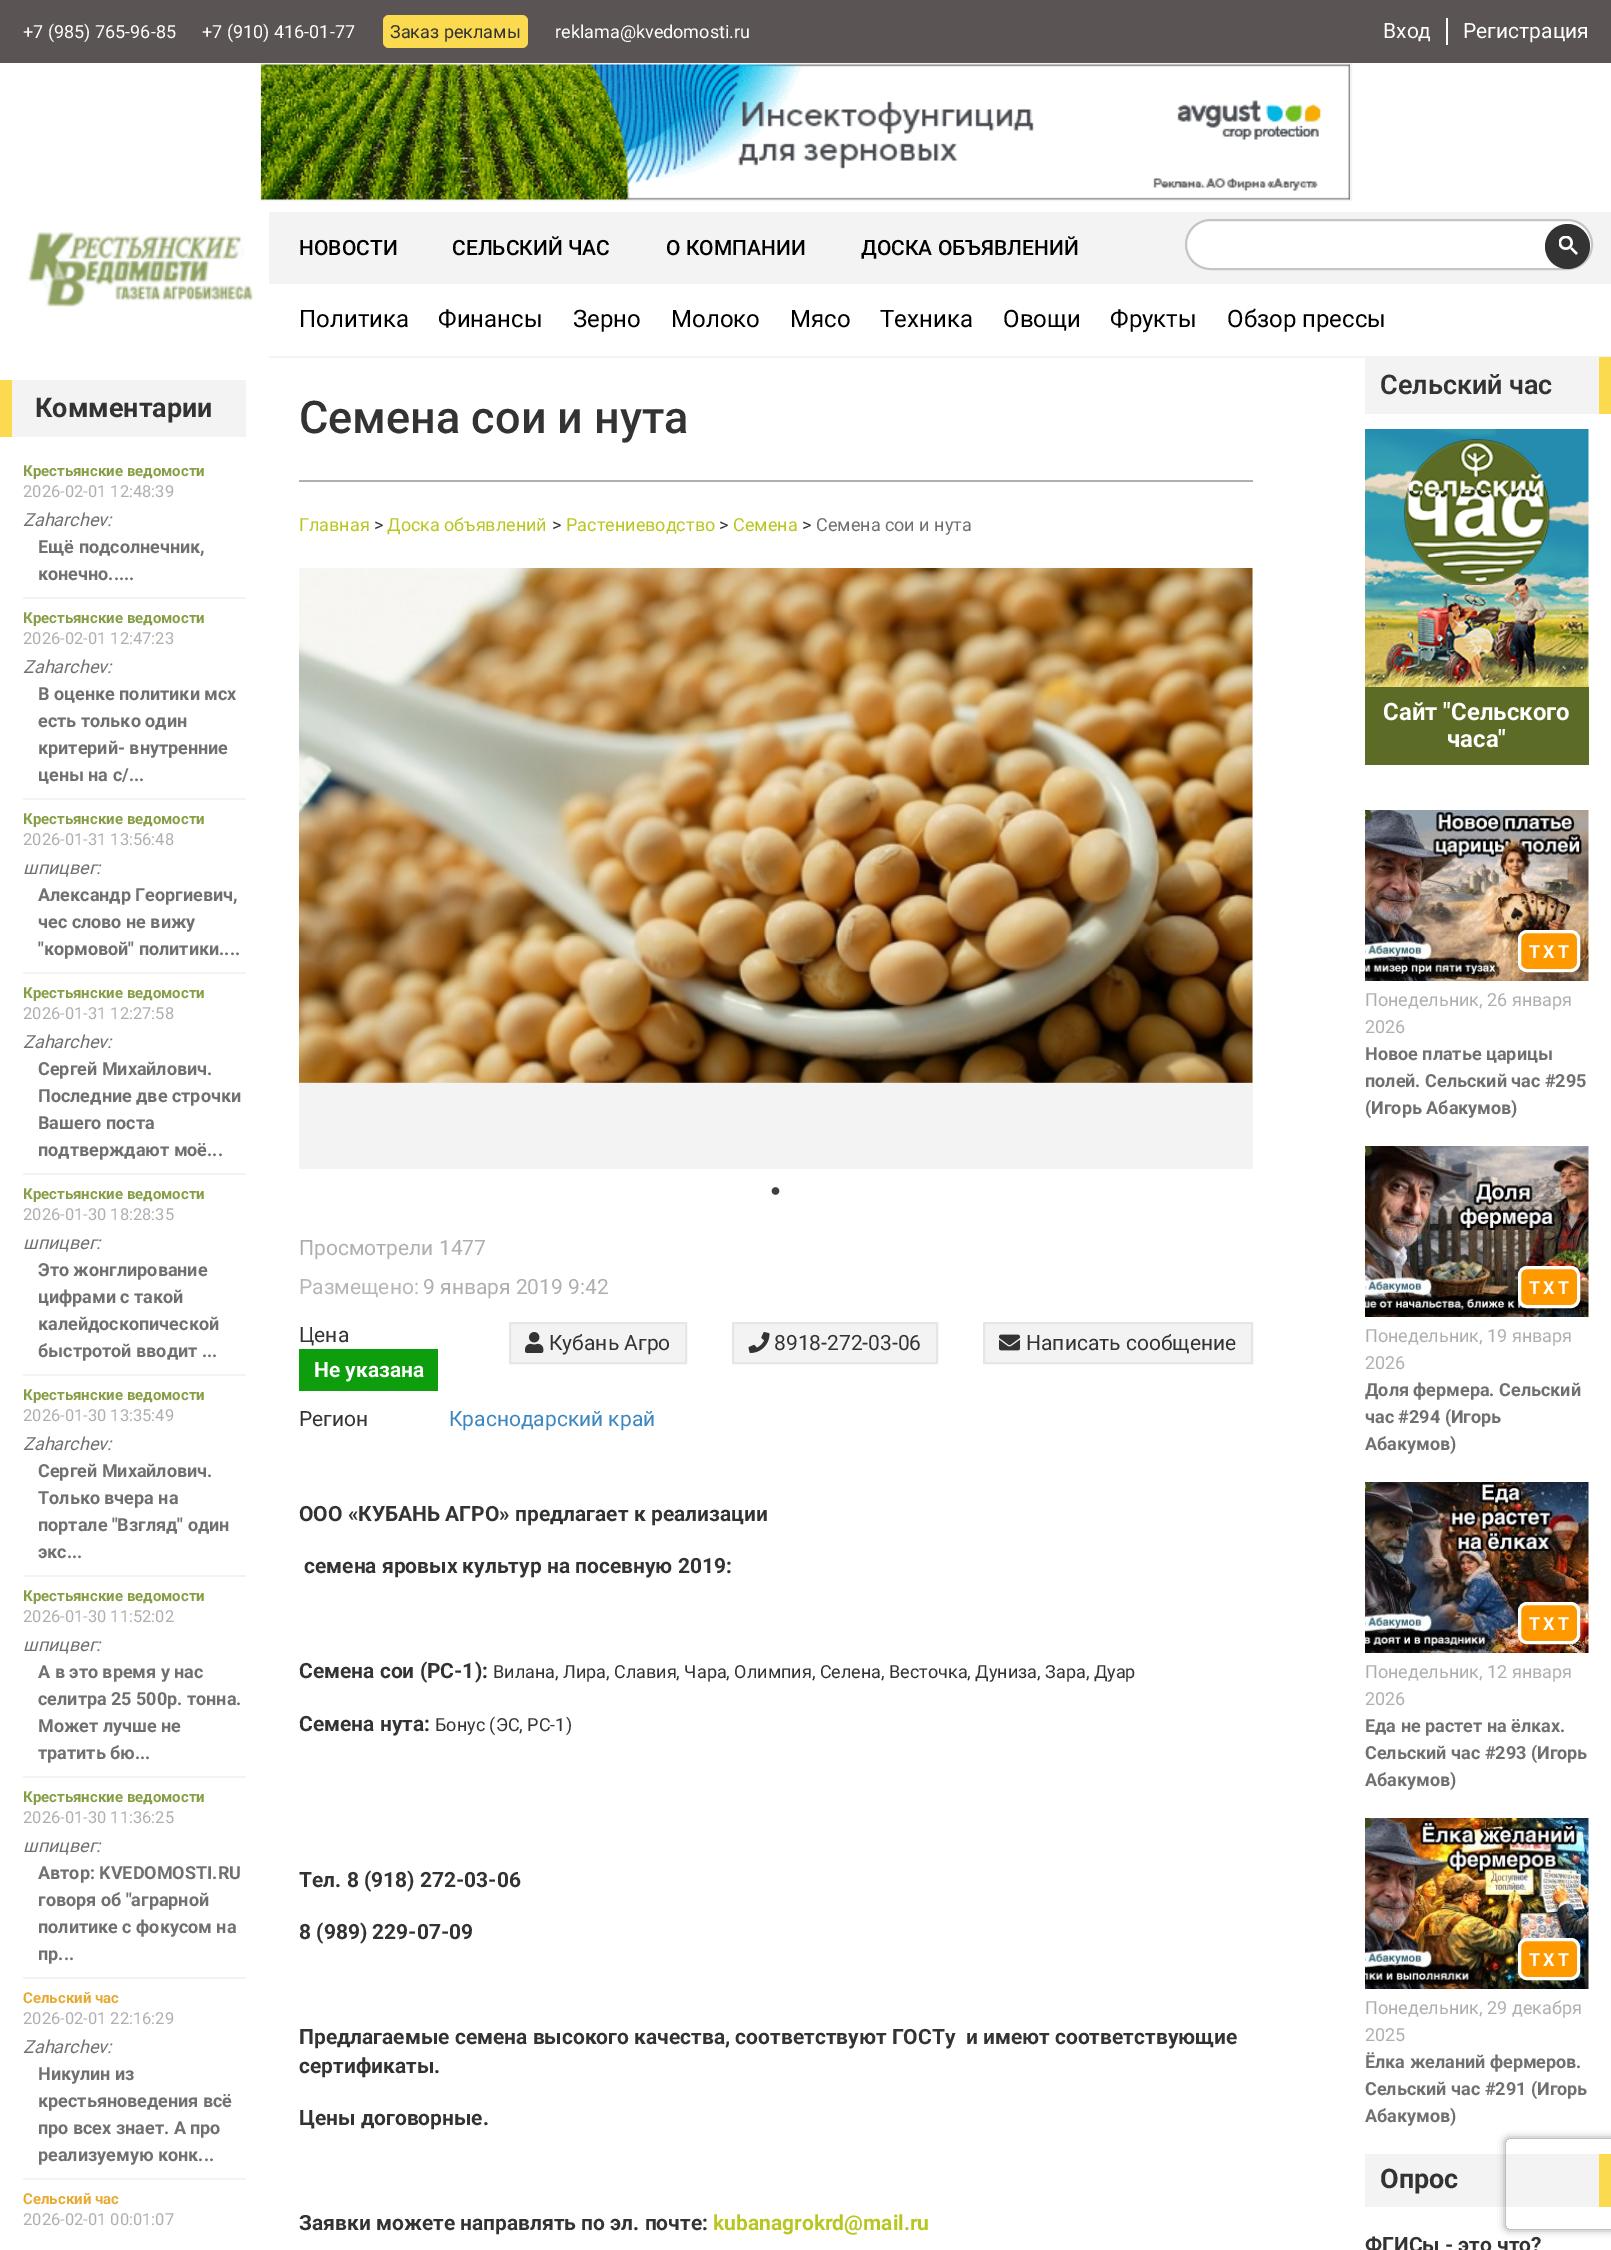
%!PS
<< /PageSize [1611 2250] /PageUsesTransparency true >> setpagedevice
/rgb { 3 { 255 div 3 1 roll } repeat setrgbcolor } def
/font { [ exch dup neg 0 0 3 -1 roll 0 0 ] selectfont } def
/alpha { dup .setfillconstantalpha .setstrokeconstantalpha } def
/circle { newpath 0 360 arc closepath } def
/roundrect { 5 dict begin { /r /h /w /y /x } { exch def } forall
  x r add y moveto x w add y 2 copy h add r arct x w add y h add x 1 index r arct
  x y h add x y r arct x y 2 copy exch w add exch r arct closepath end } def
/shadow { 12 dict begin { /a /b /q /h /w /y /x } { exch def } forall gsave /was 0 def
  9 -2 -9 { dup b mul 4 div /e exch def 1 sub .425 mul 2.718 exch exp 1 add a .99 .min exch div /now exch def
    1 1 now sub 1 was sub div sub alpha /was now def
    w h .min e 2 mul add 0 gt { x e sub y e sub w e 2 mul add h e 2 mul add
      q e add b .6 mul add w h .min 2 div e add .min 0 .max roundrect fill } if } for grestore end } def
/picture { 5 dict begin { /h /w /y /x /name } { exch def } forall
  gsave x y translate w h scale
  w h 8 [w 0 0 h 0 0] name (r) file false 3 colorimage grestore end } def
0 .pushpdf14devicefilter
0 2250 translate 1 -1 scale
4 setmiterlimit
90 84 84 rgb
0 0 1611 2250 rectfill
251 218 79 rgb
383 15 145 33 6 roundrect fill
255 255 255 rgb
1446 18 2 27 rectfill
0 63 1611 2187 rectfill
243 243 243 rgb
2 setlinewidth
261 64 1090 136 rectstroke
(img/1.rgb) 261 64 1089 136 picture
(img/2.rgb) 26 230 227 79 picture
269 212 1342 72 rectfill
255 255 255 rgb
1186 220 406 49 24.5 roundrect gsave fill grestore
197 197 197 rgb
stroke
51 51 51 rgb
1567.5 246.5 22.5 circle fill
(img/3.rgb) 1559 236 19 19 picture
[
  [269 356 1342 2 243 243 243]
  [12 380 234 57 243 243 243]
  [0 380 12 57 251 218 79]
  [23 597 223 2 243 243 243]
  [23 798 223 2 243 243 243]
  [23 972 223 2 243 243 243]
  [23 1173 223 2 243 243 243]
  [23 1374 223 2 243 243 243]
  [23 1575 223 2 243 243 243]
  [23 1776 223 2 243 243 243]
  [23 1977 223 2 243 243 243]
  [23 2178 223 2 243 243 243]
  [299 480 954 2 175 175 175]
  [299 569 954 600 243 243 243]
] { aload pop rgb rectfill } forall
(img/4.rgb) 299 568 954 515 picture
(img/5.rgb) 771 1187 9 8 picture
510 1323 moveto 686 1323 lineto 686 1363 lineto 510 1363 lineto closepath gsave fill grestore
230 230 230 rgb
stroke
(img/6.rgb) 525 1332 19 21 picture
243 243 243 rgb
733 1323 moveto 937 1323 lineto 937 1363 lineto 733 1363 lineto closepath gsave fill grestore
230 230 230 rgb
stroke
(img/7.rgb) 748 1332 22 21 picture
243 243 243 rgb
984 1323 moveto 1252 1323 lineto 1252 1363 lineto 984 1363 lineto closepath gsave fill grestore
230 230 230 rgb
stroke
(img/8.rgb) 999 1334 21 17 picture
[
  [299 1349 139 42 13 157 13]
  [1365 358 234 56 243 243 243]
  [1599 357 12 57 251 218 79]
] { aload pop rgb rectfill } forall
(img/9.rgb) 1365 429 224 258 picture
92 108 39 rgb
1365 687 224 78 rectfill
(img/10.rgb) 1365 810 224 171 picture
255 153 0 rgb
1519.5 931.5 59 39 7.5 roundrect gsave fill grestore
255 255 255 rgb
3 setlinewidth
stroke
(img/11.rgb) 1365 1146 224 171 picture
255 153 0 rgb
1519.5 1267.5 59 39 7.5 roundrect gsave fill grestore
255 255 255 rgb
stroke
(img/12.rgb) 1365 1482 224 171 picture
255 153 0 rgb
1519.5 1603.5 59 39 7.5 roundrect gsave fill grestore
255 255 255 rgb
stroke
(img/13.rgb) 1365 1818 224 171 picture
255 153 0 rgb
1519.5 1939.5 59 39 7.5 roundrect gsave fill grestore
255 255 255 rgb
stroke
243 243 243 rgb
1365 2154 234 53 rectfill
251 218 79 rgb
1599 2154 12 53 rectfill
gsave
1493 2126 moveto 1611 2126 lineto 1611 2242 lineto 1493 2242 lineto closepath 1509 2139 moveto 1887 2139 lineto 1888.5 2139 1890 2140.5 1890 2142 curveto 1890 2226 lineto 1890 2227.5 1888.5 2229 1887 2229 curveto 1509 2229 lineto 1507.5 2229 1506 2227.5 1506 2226 curveto 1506 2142 lineto 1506 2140.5 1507.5 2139 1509 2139 curveto closepath eoclip newpath
128 128 128 rgb
1506 2139 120 90 3 4 1 shadow
grestore
/Roboto-Regular 18 font
255 255 255 rgb
23 38 moveto (+7 \(985\) 765-96-85) show
202 38 moveto (+7 \(910\) 416-01-77) show
51 51 51 rgb
390 38 moveto (Заказ рекламы) show
255 255 255 rgb
555 38 moveto (reklama@kvedomosti.ru) show
/Roboto-Regular 21 font
1383 38 moveto (Вход) show
1463 38 moveto (Регистрация) show
/Roboto-Medium 21 font
0 0 0 rgb
[
  [(НОВОСТИ) 299 255]
  [(СЕЛЬСКИЙ ЧАС) 452 255]
  [(О КОМПАНИИ) 666 255]
  [(ДОСКА ОБЪЯВЛЕНИЙ) 861 255]
] { aload pop moveto show } forall
/Roboto-Regular 24 font
[
  [(Политика) 299 327]
  [(Финансы) 438 327]
  [(Зерно) 573 327]
  [(Молоко) 671 327]
  [(Мясо) 790 327]
  [(Техника) 880 327]
  [(Овощи) 1003 327]
  [(Фрукты) 1110 327]
  [(Обзор прессы) 1227 327]
] { aload pop moveto show } forall
/Roboto-Bold 27 font
51 51 51 rgb
35 417 moveto (Комментарии) show
/Roboto-Bold 15 font
134 159 70 rgb
23 476 moveto (Крестьянские ведомости) show
/Roboto-Regular 16.5 font
175 175 175 rgb
23 497 moveto (2026-02-01 12:48:39) show
/Roboto-Italic 18 font
112 112 112 rgb
23 526 moveto (Zaharchev:) show
/Roboto-Bold 18 font
38 553 moveto (Ещё подсолнечник,) show
38 580 moveto (конечно.....) show
/Roboto-Bold 15 font
134 159 70 rgb
23 623 moveto (Крестьянские ведомости) show
/Roboto-Regular 16.5 font
175 175 175 rgb
23 644 moveto (2026-02-01 12:47:23) show
/Roboto-Italic 18 font
112 112 112 rgb
23 673 moveto (Zaharchev:) show
/Roboto-Bold 18 font
[
  [(В оценке политики мсх) 38 700]
  [(есть только один) 38 727]
  [(критерий- внутренние) 38 754]
  [(цены на с/...) 38 781]
] { aload pop moveto show } forall
/Roboto-Bold 15 font
134 159 70 rgb
23 824 moveto (Крестьянские ведомости) show
/Roboto-Regular 16.5 font
175 175 175 rgb
23 845 moveto (2026-01-31 13:56:48) show
/Roboto-Italic 18 font
112 112 112 rgb
23 874 moveto (шпицвег:) show
/Roboto-Bold 18 font
[
  [(Александр Георгиевич,) 38 901]
  [(чес слово не вижу) 38 928]
  [("кормовой" политики....) 38 955]
] { aload pop moveto show } forall
/Roboto-Bold 15 font
134 159 70 rgb
23 998 moveto (Крестьянские ведомости) show
/Roboto-Regular 16.5 font
175 175 175 rgb
23 1019 moveto (2026-01-31 12:27:58) show
/Roboto-Italic 18 font
112 112 112 rgb
23 1048 moveto (Zaharchev:) show
/Roboto-Bold 18 font
[
  [(Сергей Михайлович.) 38 1075]
  [(Последние две строчки) 38 1102]
  [(Вашего поста) 38 1129]
  [(подтверждают моё...) 38 1156]
] { aload pop moveto show } forall
/Roboto-Bold 15 font
134 159 70 rgb
23 1199 moveto (Крестьянские ведомости) show
/Roboto-Regular 16.5 font
175 175 175 rgb
23 1220 moveto (2026-01-30 18:28:35) show
/Roboto-Italic 18 font
112 112 112 rgb
23 1249 moveto (шпицвег:) show
/Roboto-Bold 18 font
[
  [(Это жонглирование) 38 1276]
  [(цифрами с такой) 38 1303]
  [(калейдоскопической) 38 1330]
  [(быстротой вводит ...) 38 1357]
] { aload pop moveto show } forall
/Roboto-Bold 15 font
134 159 70 rgb
23 1400 moveto (Крестьянские ведомости) show
/Roboto-Regular 16.5 font
175 175 175 rgb
23 1421 moveto (2026-01-30 13:35:49) show
/Roboto-Italic 18 font
112 112 112 rgb
23 1450 moveto (Zaharchev:) show
/Roboto-Bold 18 font
[
  [(Сергей Михайлович.) 38 1477]
  [(Только вчера на) 38 1504]
  [(портале "Взгляд" один) 38 1531]
  [(экс...) 38 1558]
] { aload pop moveto show } forall
/Roboto-Bold 15 font
134 159 70 rgb
23 1601 moveto (Крестьянские ведомости) show
/Roboto-Regular 16.5 font
175 175 175 rgb
23 1622 moveto (2026-01-30 11:52:02) show
/Roboto-Italic 18 font
112 112 112 rgb
23 1651 moveto (шпицвег:) show
/Roboto-Bold 18 font
[
  [(А в это время у нас) 38 1678]
  [(селитра 25 500р. тонна.) 38 1705]
  [(Может лучше не) 38 1732]
  [(тратить бю...) 38 1759]
] { aload pop moveto show } forall
/Roboto-Bold 15 font
134 159 70 rgb
23 1802 moveto (Крестьянские ведомости) show
/Roboto-Regular 16.5 font
175 175 175 rgb
23 1823 moveto (2026-01-30 11:36:25) show
/Roboto-Italic 18 font
112 112 112 rgb
23 1852 moveto (шпицвег:) show
/Roboto-Bold 18 font
[
  [(Автор: KVEDOMOSTI.RU) 38 1879]
  [(говоря об "аграрной) 38 1906]
  [(политике с фокусом на) 38 1933]
  [(пр...) 38 1960]
] { aload pop moveto show } forall
/Roboto-Bold 15 font
231 170 52 rgb
23 2003 moveto (Сельский час) show
/Roboto-Regular 16.5 font
175 175 175 rgb
23 2024 moveto (2026-02-01 22:16:29) show
/Roboto-Italic 18 font
112 112 112 rgb
23 2053 moveto (Zaharchev:) show
/Roboto-Bold 18 font
[
  [(Никулин из) 38 2080]
  [(крестьяноведения всё) 38 2107]
  [(про всех знает. А про) 38 2134]
  [(реализуемую конк...) 38 2161]
] { aload pop moveto show } forall
/Roboto-Bold 15 font
231 170 52 rgb
23 2204 moveto (Сельский час) show
/Roboto-Regular 16.5 font
175 175 175 rgb
23 2225 moveto (2026-02-01 00:01:07) show
/Roboto-Medium 45 font
51 51 51 rgb
299 433 moveto (Семена сои и нута) show
/Roboto-Regular 18 font
185 198 32 rgb
299 531 moveto (Главная) show
51 51 51 rgb
374 531 moveto (>) show
185 198 32 rgb
387 531 moveto (Доска объявлений) show
51 51 51 rgb
552 531 moveto (>) show
185 198 32 rgb
566 531 moveto (Растениеводство) show
51 51 51 rgb
719 531 moveto (>) show
185 198 32 rgb
733 531 moveto (Семена) show
51 51 51 rgb
802 531 moveto (>) show
112 112 112 rgb
816 531 moveto (Семена сои и нута) show
/Roboto-Regular 21 font
175 175 175 rgb
299 1255 moveto (Просмотрели 1477) show
183 183 183 rgb
299 1294 moveto (Размещено:) show
175 175 175 rgb
423 1294 moveto (9 января 2019 9:42) show
51 51 51 rgb
[
  [(Цена) 299 1342]
  [(Кубань Агро) 549 1350]
  [(8918-272-03-06) 774 1350]
  [(Написать сообщение) 1026 1350]
] { aload pop moveto show } forall
/Roboto-Bold 21 font
255 255 255 rgb
314 1377 moveto (Не указана) show
/Roboto-Regular 21 font
51 51 51 rgb
299 1426 moveto (Регион) show
60 135 192 rgb
449 1426 moveto (Краснодарский край) show
/Roboto-Bold 21 font
51 51 51 rgb
[
  [(ООО «КУБАНЬ АГРО» предлагает к реализации) 299 1521]
  [(семена яровых культур на посевную 2019:) 304 1573]
  [(Семена сои \(РС-1\):) 299 1678]
] { aload pop moveto show } forall
/Roboto-Regular 18 font
493 1678 moveto (Вилана, Лира, Славия, Чара, Олимпия, Селена, Весточка, Дуниза, Зара, Дуар) show
/Roboto-Bold 21 font
299 1731 moveto (Семена нута:) show
/Roboto-Regular 18 font
435 1731 moveto (Бонус \(ЭС, РС-1\)) show
/Roboto-Bold 21 font
[
  [(Тел. 8 \(918\) 272-03-06) 299 1887]
  [(8 \(989\) 229-07-09) 299 1939]
  [(Предлагаемые семена высокого качества, соответствуют ГОСТу  и имеют соответствующие) 299 2044]
  [(сертификаты.) 299 2073]
  [(Цены договорные.) 299 2125]
  [(Заявки можете направлять по эл. почте:) 299 2230]
] { aload pop moveto show } forall
185 198 32 rgb
713 2230 moveto (kubanagrokrd@mail.ru) show
/Roboto-SemiBold 27 font
51 51 51 rgb
1380 394 moveto (Сельский час) show
/Roboto-Bold 24 font
255 255 255 rgb
1383 720 moveto (Cайт "Сельского) show
1447 747 moveto (часа") show
/Roboto-Bold 18 font
1529 958 moveto 3 0 (TXT) ashow
/Roboto-Regular 18 font
175 175 175 rgb
1365 1006 moveto (Понедельник, 26 января) show
1365 1033 moveto (2026) show
/Roboto-Bold 18 font
112 112 112 rgb
[
  [(Новое платье царицы) 1365 1060]
  [(полей. Сельский час #295) 1365 1087]
  [(\(Игорь Абакумов\)) 1365 1114]
] { aload pop moveto show } forall
255 255 255 rgb
1529 1294 moveto 3 0 (TXT) ashow
/Roboto-Regular 18 font
175 175 175 rgb
1365 1342 moveto (Понедельник, 19 января) show
1365 1369 moveto (2026) show
/Roboto-Bold 18 font
112 112 112 rgb
[
  [(Доля фермера. Сельский) 1365 1396]
  [(час #294 \(Игорь) 1365 1423]
  [(Абакумов\)) 1365 1450]
] { aload pop moveto show } forall
255 255 255 rgb
1529 1630 moveto 3 0 (TXT) ashow
/Roboto-Regular 18 font
175 175 175 rgb
1365 1678 moveto (Понедельник, 12 января) show
1365 1705 moveto (2026) show
/Roboto-Bold 18 font
112 112 112 rgb
[
  [(Еда не растет на ёлках.) 1365 1732]
  [(Сельский час #293 \(Игорь) 1365 1759]
  [(Абакумов\)) 1365 1786]
] { aload pop moveto show } forall
255 255 255 rgb
1529 1966 moveto 3 0 (TXT) ashow
/Roboto-Regular 18 font
175 175 175 rgb
1365 2014 moveto (Понедельник, 29 декабря) show
1365 2041 moveto (2025) show
/Roboto-Bold 18 font
112 112 112 rgb
[
  [(Ёлка желаний фермеров.) 1365 2068]
  [(Сельский час #291 \(Игорь) 1365 2095]
  [(Абакумов\)) 1365 2122]
] { aload pop moveto show } forall
/Roboto-Bold 27 font
51 51 51 rgb
1380 2188 moveto (Опрос) show
/Roboto-Bold 21 font
1365 2252 moveto (ФГИСы - это что?) show
.poppdf14devicefilter showpage
